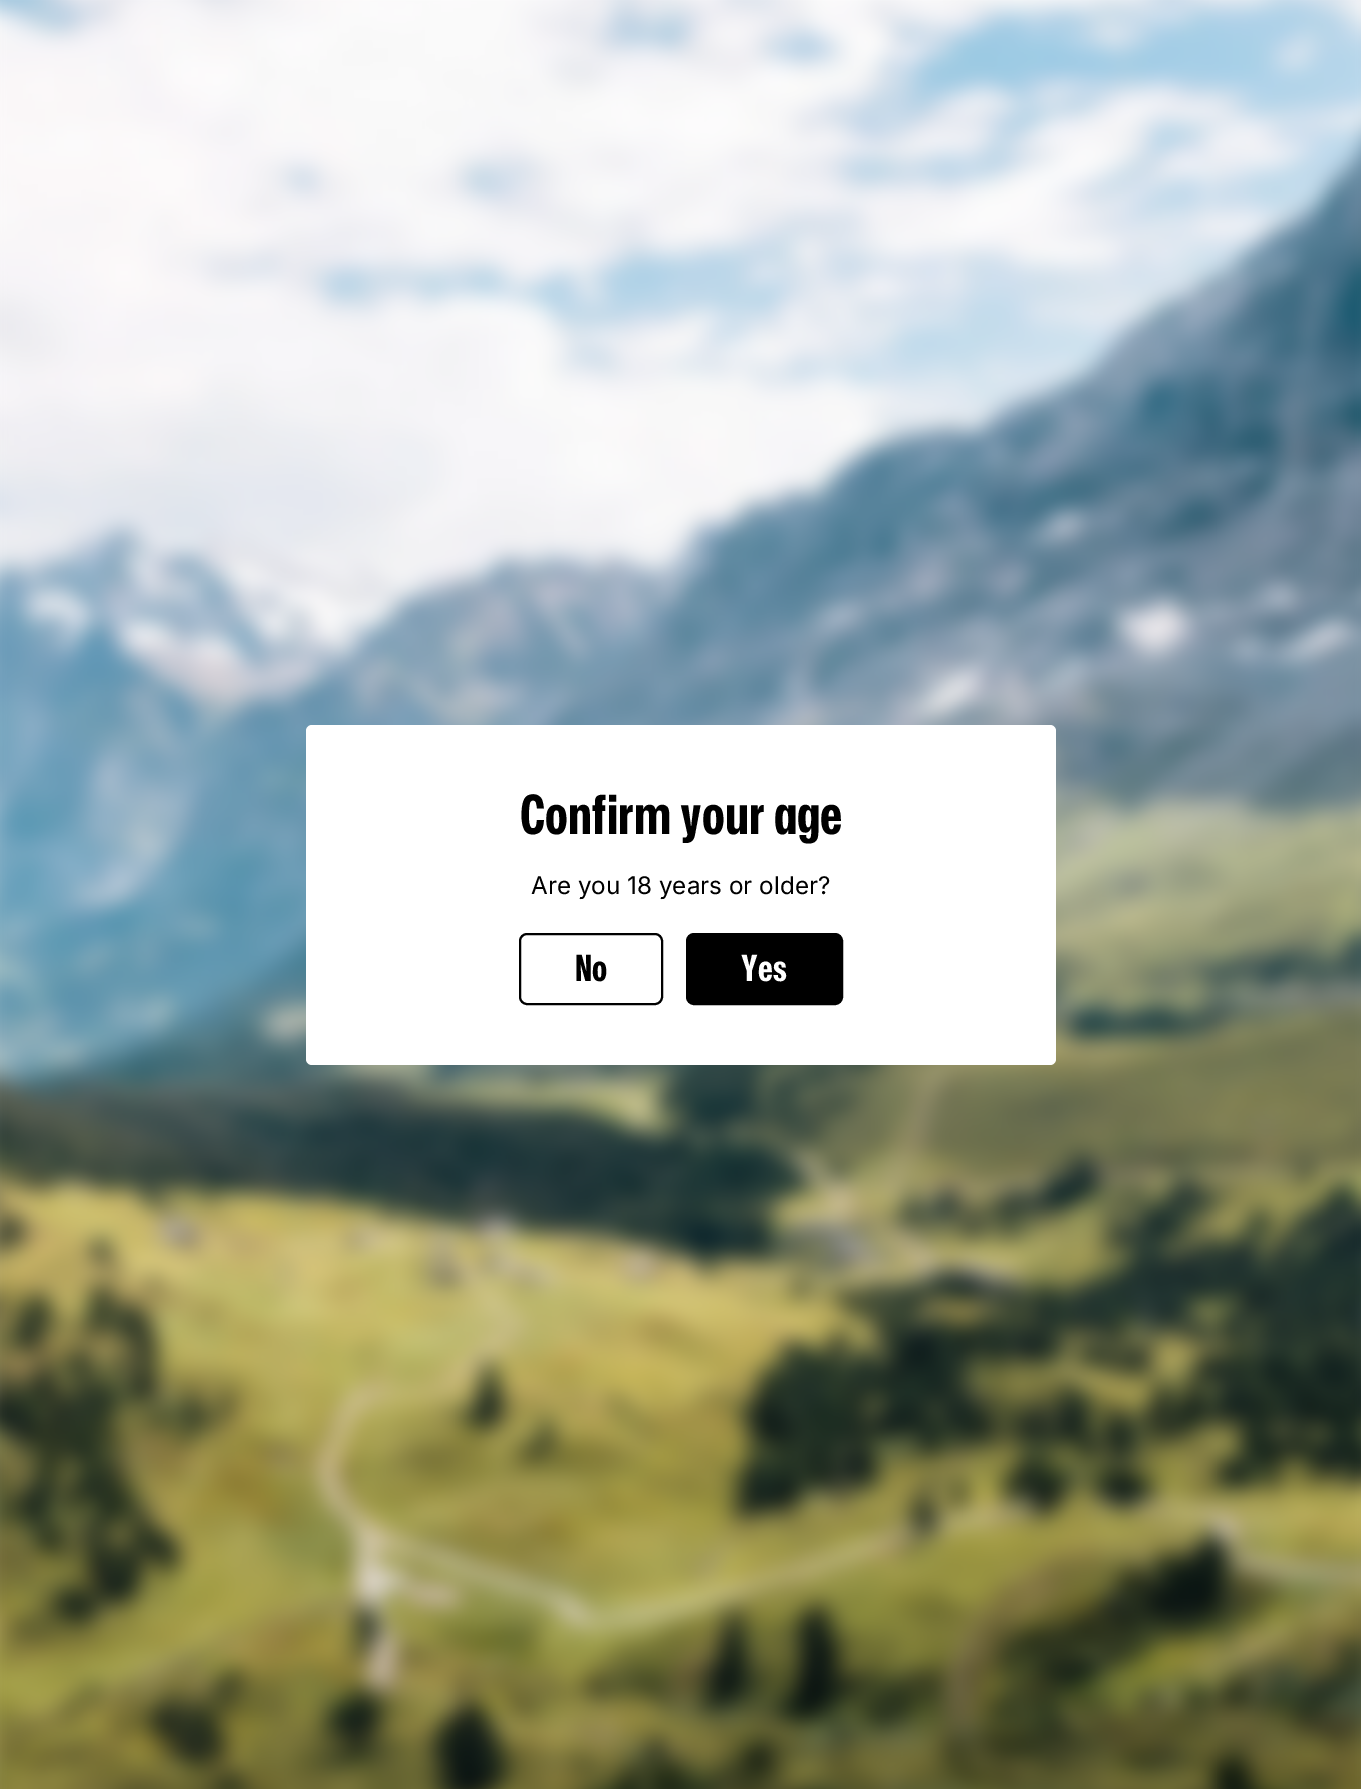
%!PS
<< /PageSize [1361 1789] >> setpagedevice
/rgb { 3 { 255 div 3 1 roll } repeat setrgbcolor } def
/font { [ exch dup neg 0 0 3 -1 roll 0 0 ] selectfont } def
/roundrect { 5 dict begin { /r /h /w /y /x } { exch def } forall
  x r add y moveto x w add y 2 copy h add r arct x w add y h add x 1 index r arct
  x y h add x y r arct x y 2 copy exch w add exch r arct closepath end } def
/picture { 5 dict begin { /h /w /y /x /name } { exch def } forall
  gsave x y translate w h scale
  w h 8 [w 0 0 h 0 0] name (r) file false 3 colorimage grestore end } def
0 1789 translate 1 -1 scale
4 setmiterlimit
255 255 255 rgb
0 0 1361 1789 rectfill
(img/1.rgb) 0 0 1361 1789 picture
306 725 750 340 6 roundrect fill
0 0 0 rgb
2 setlinewidth
520 934 142 70 7 roundrect stroke
687 934 155 70 7 roundrect gsave fill grestore
stroke
/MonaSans-Bold 54 font
520 834 moveto (Confirm your age) show
/Inter-Regular 24.25 font
531 894 moveto (Are you 18 years or older?) show
/MonaSans-Bold 36 font
575 981 moveto (No) show
255 255 255 rgb
741 981 moveto (Yes) show
showpage
